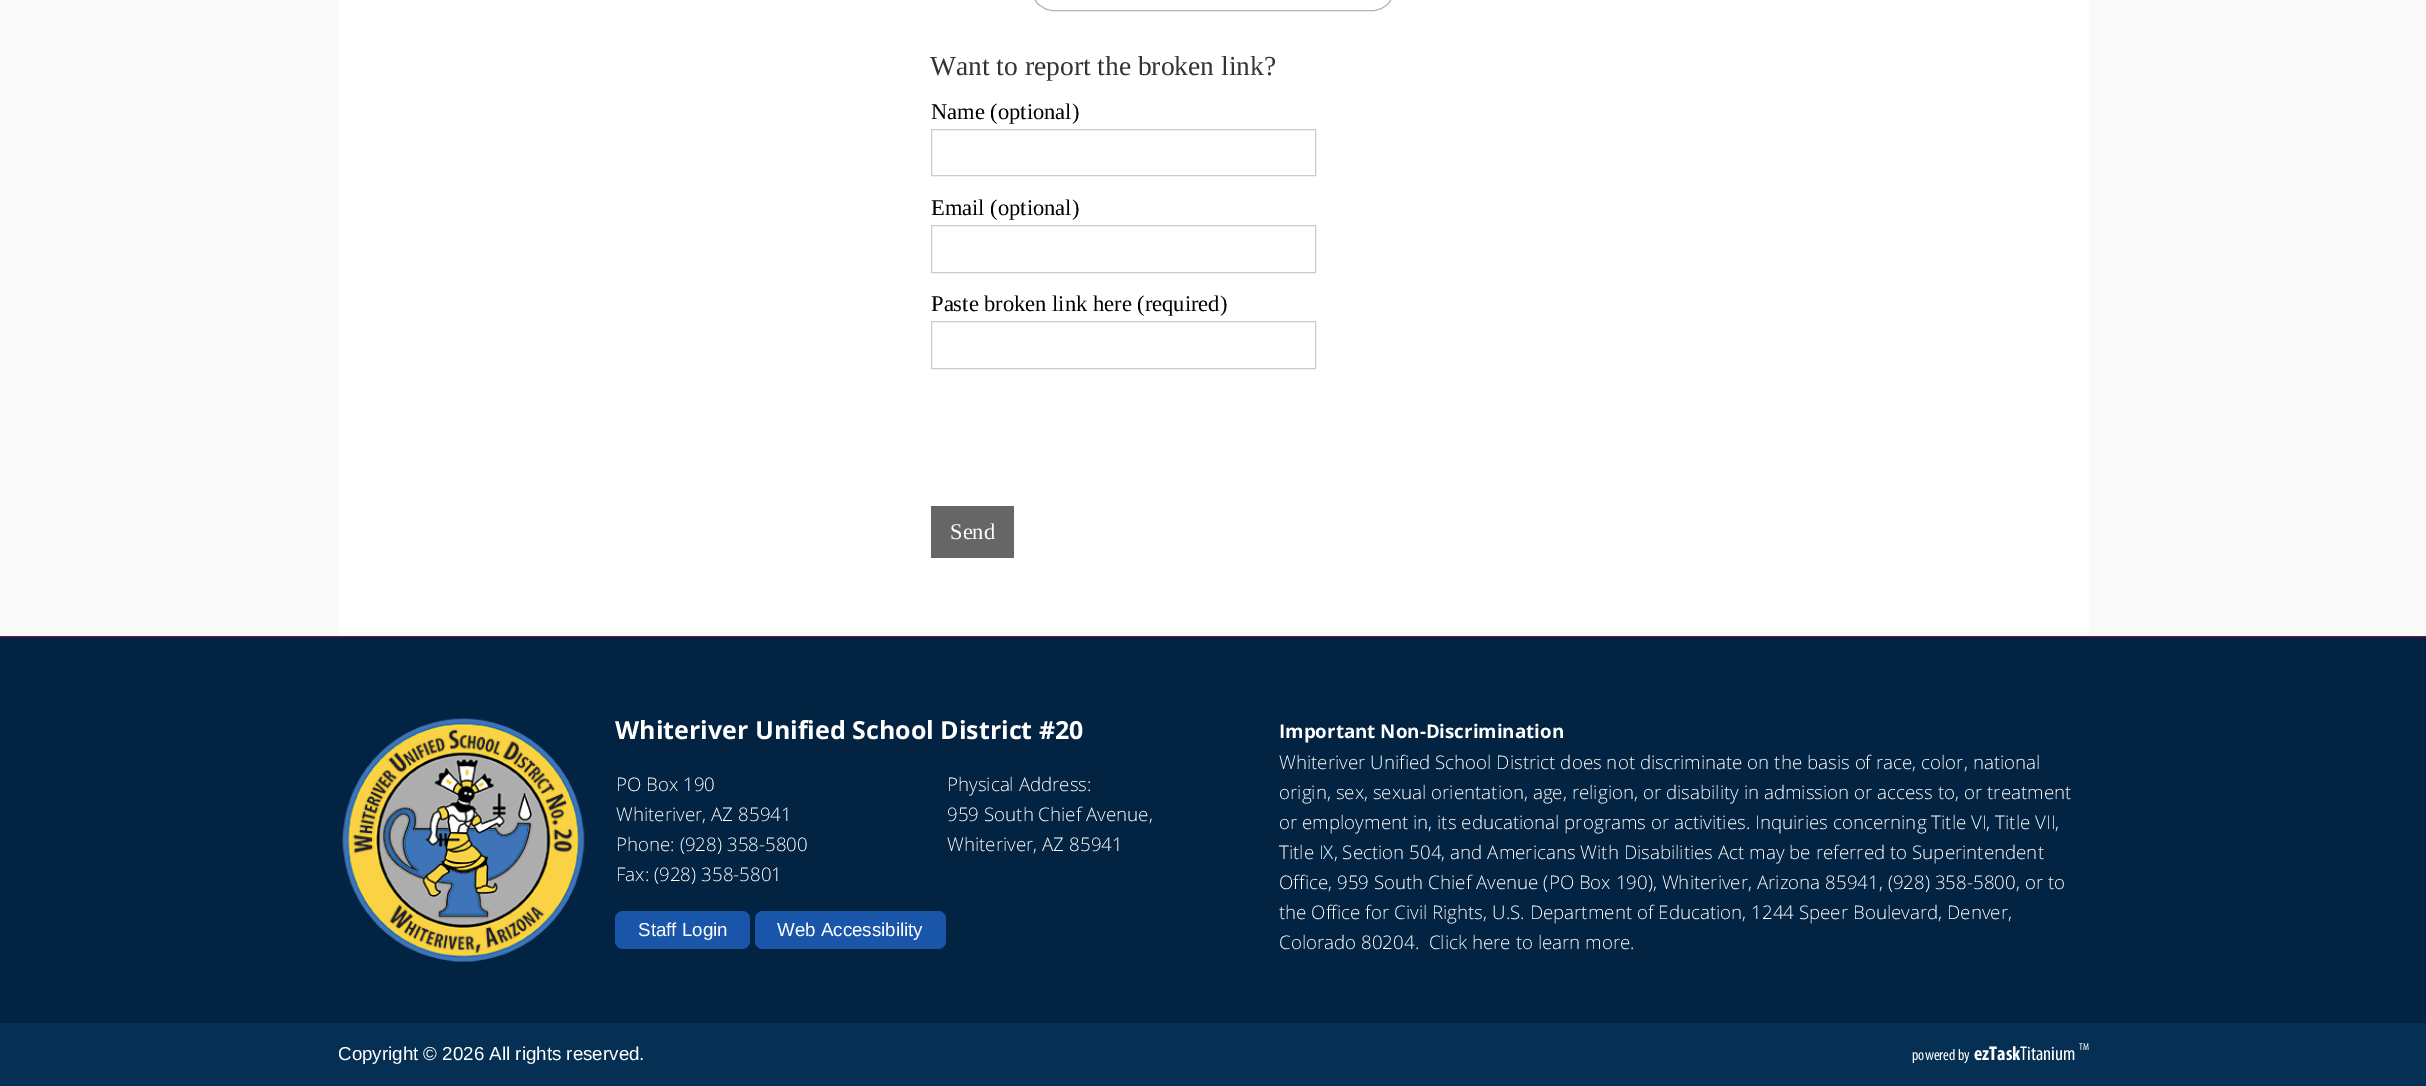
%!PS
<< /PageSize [2426 1086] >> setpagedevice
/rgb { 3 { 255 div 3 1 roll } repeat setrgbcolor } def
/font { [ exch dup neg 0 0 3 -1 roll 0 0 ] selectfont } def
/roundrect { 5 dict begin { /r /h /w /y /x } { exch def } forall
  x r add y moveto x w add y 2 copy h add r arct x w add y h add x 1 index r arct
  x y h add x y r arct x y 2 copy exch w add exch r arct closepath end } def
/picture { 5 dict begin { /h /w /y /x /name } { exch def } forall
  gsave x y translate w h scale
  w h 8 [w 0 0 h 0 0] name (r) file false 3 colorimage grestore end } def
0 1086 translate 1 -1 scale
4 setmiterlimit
2 35 65 rgb
0 0 2426 1086 rectfill
249 249 249 rgb
0 0 2426 636 rectfill
255 255 255 rgb
339 0 1750 636 rectfill
179 179 179 rgb
1031.5 -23.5 363 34 22 roundrect stroke
204 204 204 rgb
931.5 129.5 384 46 rectstroke
931.5 225.5 384 47 rectstroke
931.5 321.5 384 47 rectstroke
102 102 102 rgb
931 506 83 52 rectfill
141 7 70 rgb
0 636 2426 1 rectfill
(img/1.rgb) 342 718 243 244 picture
25 86 170 rgb
615 911 135 38 8 roundrect fill
755 911 191 38 8 roundrect fill
5 47 83 rgb
0 1023 2426 63 rectfill
/LiberationSerif-Regular 27.5 font
51 51 51 rgb
930 75 moveto (Want to report the broken link?) show
/LiberationSerif-Regular 22.5 font
0 0 0 rgb
[
  [(Name \(optional\)) 931 119]
  [(Email \(optional\)) 931 215]
  [(Paste broken link here \(required\)) 931 311]
] { aload pop moveto show } forall
255 255 255 rgb
950 539 moveto (Send) show
/OpenSans-Bold 25 font
615 739 moveto (Whiteriver Unified School District #20) show
/OpenSans-Light 18.75 font
[
  [(PO Box 190) 616 791]
  [(Whiteriver, AZ 85941) 616 821]
  [(Phone: \(928\) 358-5800) 616 851]
  [(Fax: \(928\) 358-5801) 616 881]
  [(Physical Address:) 947 791]
  [(959 South Chief Avenue,) 947 821]
  [(Whiteriver, AZ 85941) 947 851]
] { aload pop moveto show } forall
/LiberationSans-Regular 18.75 font
638 936 moveto (Staff Login) show
777 936 moveto (Web Accessibility) show
/OpenSans-Bold 18.75 font
1279 738 moveto (Important Non-Discrimination) show
/OpenSans-Light 18.75 font
[
  [(Whiteriver Unified School District does not discriminate on the basis of race, color, national) 1279 769]
  [(origin, sex, sexual orientation, age, religion, or disability in admission or access to, or treatment) 1279 799]
  [(or employment in, its educational programs or activities. Inquiries concerning Title VI, Title VII,) 1279 829]
  [(Title IX, Section 504, and Americans With Disabilities Act may be referred to Superintendent) 1279 859]
  [(Office, 959 South Chief Avenue \(PO Box 190\), Whiteriver, Arizona 85941, \(928\) 358-5800, or to) 1279 889]
  [(the Office for Civil Rights, U.S. Department of Education, 1244 Speer Boulevard, Denver,) 1279 919]
  [(Colorado 80204.  Click here to learn more.) 1279 949]
] { aload pop moveto show } forall
/LiberationSans-Regular 18.75 font
338 1060 moveto (Copyright © 2026 All rights reserved.) show
/Myriad-Regular 16 font
1912 1060 moveto (powered by) show
/Myriad-Bold 20 font
1974 1060 moveto (ezTask) show
/Myriad-Regular 20 font
2020 1060 moveto (Titanium) show
/Myriad-Regular 10 font
2079 1050 moveto (TM) show
showpage
